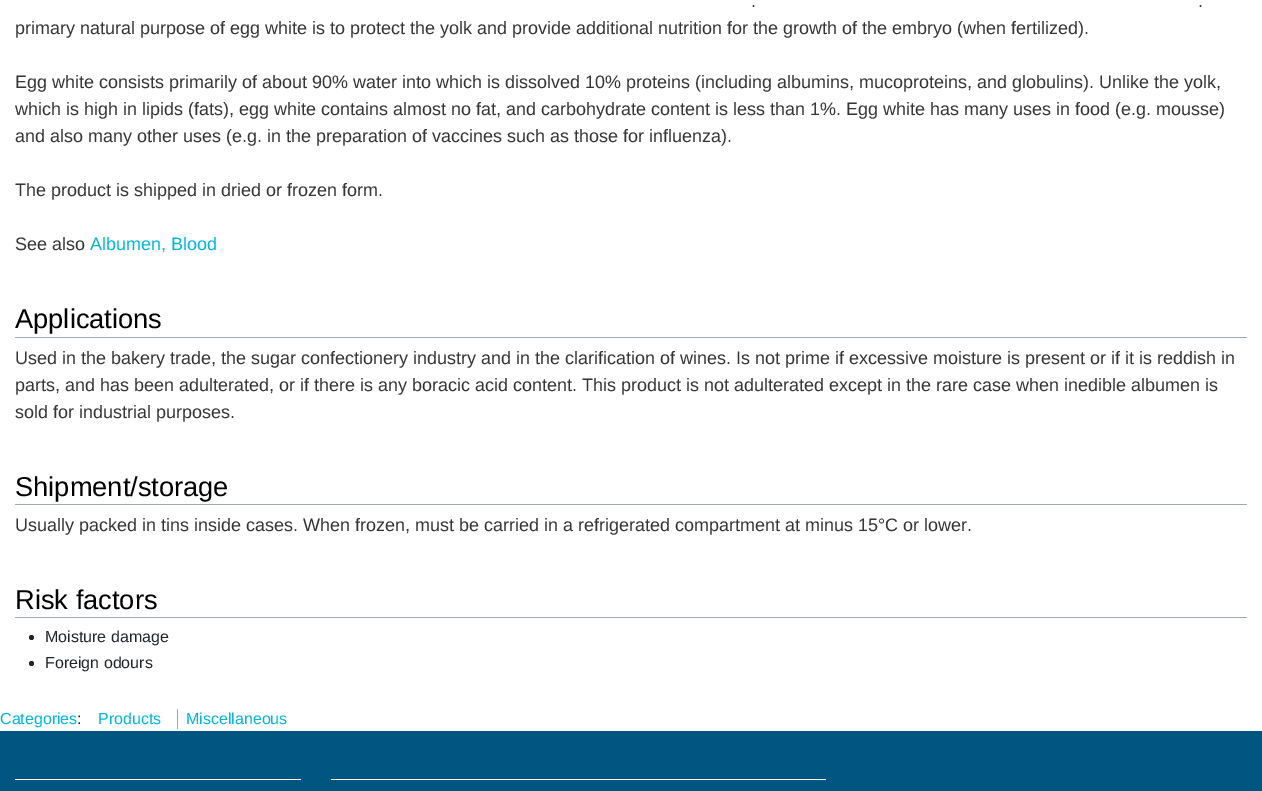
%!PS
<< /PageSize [1262 791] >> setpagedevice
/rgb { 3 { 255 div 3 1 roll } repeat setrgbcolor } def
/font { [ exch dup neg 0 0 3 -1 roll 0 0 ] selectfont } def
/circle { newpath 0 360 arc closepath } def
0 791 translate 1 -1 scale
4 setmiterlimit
255 255 255 rgb
0 0 1262 791 rectfill
[
  [15 337 1232 1 162 169 177]
  [15 504 1232 1 162 169 177]
  [15 617 1232 1 162 169 177]
] { aload pop rgb rectfill } forall
33 37 41 rgb
31.5 637.5 2.5 circle fill
31.5 663.5 2.5 circle fill
[
  [177 709 1 20 162 169 177]
  [0 731 1262 60 0 85 129]
  [15 779 286 1 255 255 255]
  [331 779 495 1 255 255 255]
] { aload pop rgb rectfill } forall
/LiberationSans-Regular 18 font
53 53 53 rgb
[
  [(.) 751 7]
  [(.) 1198 7]
  [(primary natural purpose of egg white is to protect the yolk and provide additional nutrition for the growth of the embryo \(when fertilized\).) 15 34]
  [(Egg white consists primarily of about 90% water into which is dissolved 10% proteins \(including albumins, mucoproteins, and globulins\). Unlike the yolk,) 15 88]
  [(which is high in lipids \(fats\), egg white contains almost no fat, and carbohydrate content is less than 1%. Egg white has many uses in food \(e.g. mousse\)) 15 115]
  [(and also many other uses \(e.g. in the preparation of vaccines such as those for influenza\).) 15 142]
  [(The product is shipped in dried or frozen form.) 15 196]
  [(See also) 15 250]
] { aload pop moveto show } forall
0 182 221 rgb
90 250 moveto (Albumen, Blood) show
/LiberationSans-Regular 27.25 font
0 0 0 rgb
15 328 moveto (Applications) show
/LiberationSans-Regular 18 font
53 53 53 rgb
[
  [(Used in the bakery trade, the sugar confectionery industry and in the clarification of wines. Is not prime if excessive moisture is present or if it is reddish in) 15 364]
  [(parts, and has been adulterated, or if there is any boracic acid content. This product is not adulterated except in the rare case when inedible albumen is) 15 391]
  [(sold for industrial purposes.) 15 418]
] { aload pop moveto show } forall
/LiberationSans-Regular 27.25 font
0 0 0 rgb
15 496 moveto (Shipment/storage) show
/LiberationSans-Regular 18 font
53 53 53 rgb
15 531 moveto (Usually packed in tins inside cases. When frozen, must be carried in a refrigerated compartment at minus 15°C or lower.) show
/LiberationSans-Regular 27.25 font
0 0 0 rgb
15 609 moveto (Risk factors) show
/LiberationSans-Regular 16 font
33 37 41 rgb
45 642 moveto (Moisture damage) show
45 668 moveto (Foreign odours) show
0 182 221 rgb
0 724 moveto (Categories) show
33 37 41 rgb
77 724 moveto (:) show
0 182 221 rgb
98 724 moveto (Products) show
186 724 moveto (Miscellaneous) show
showpage
